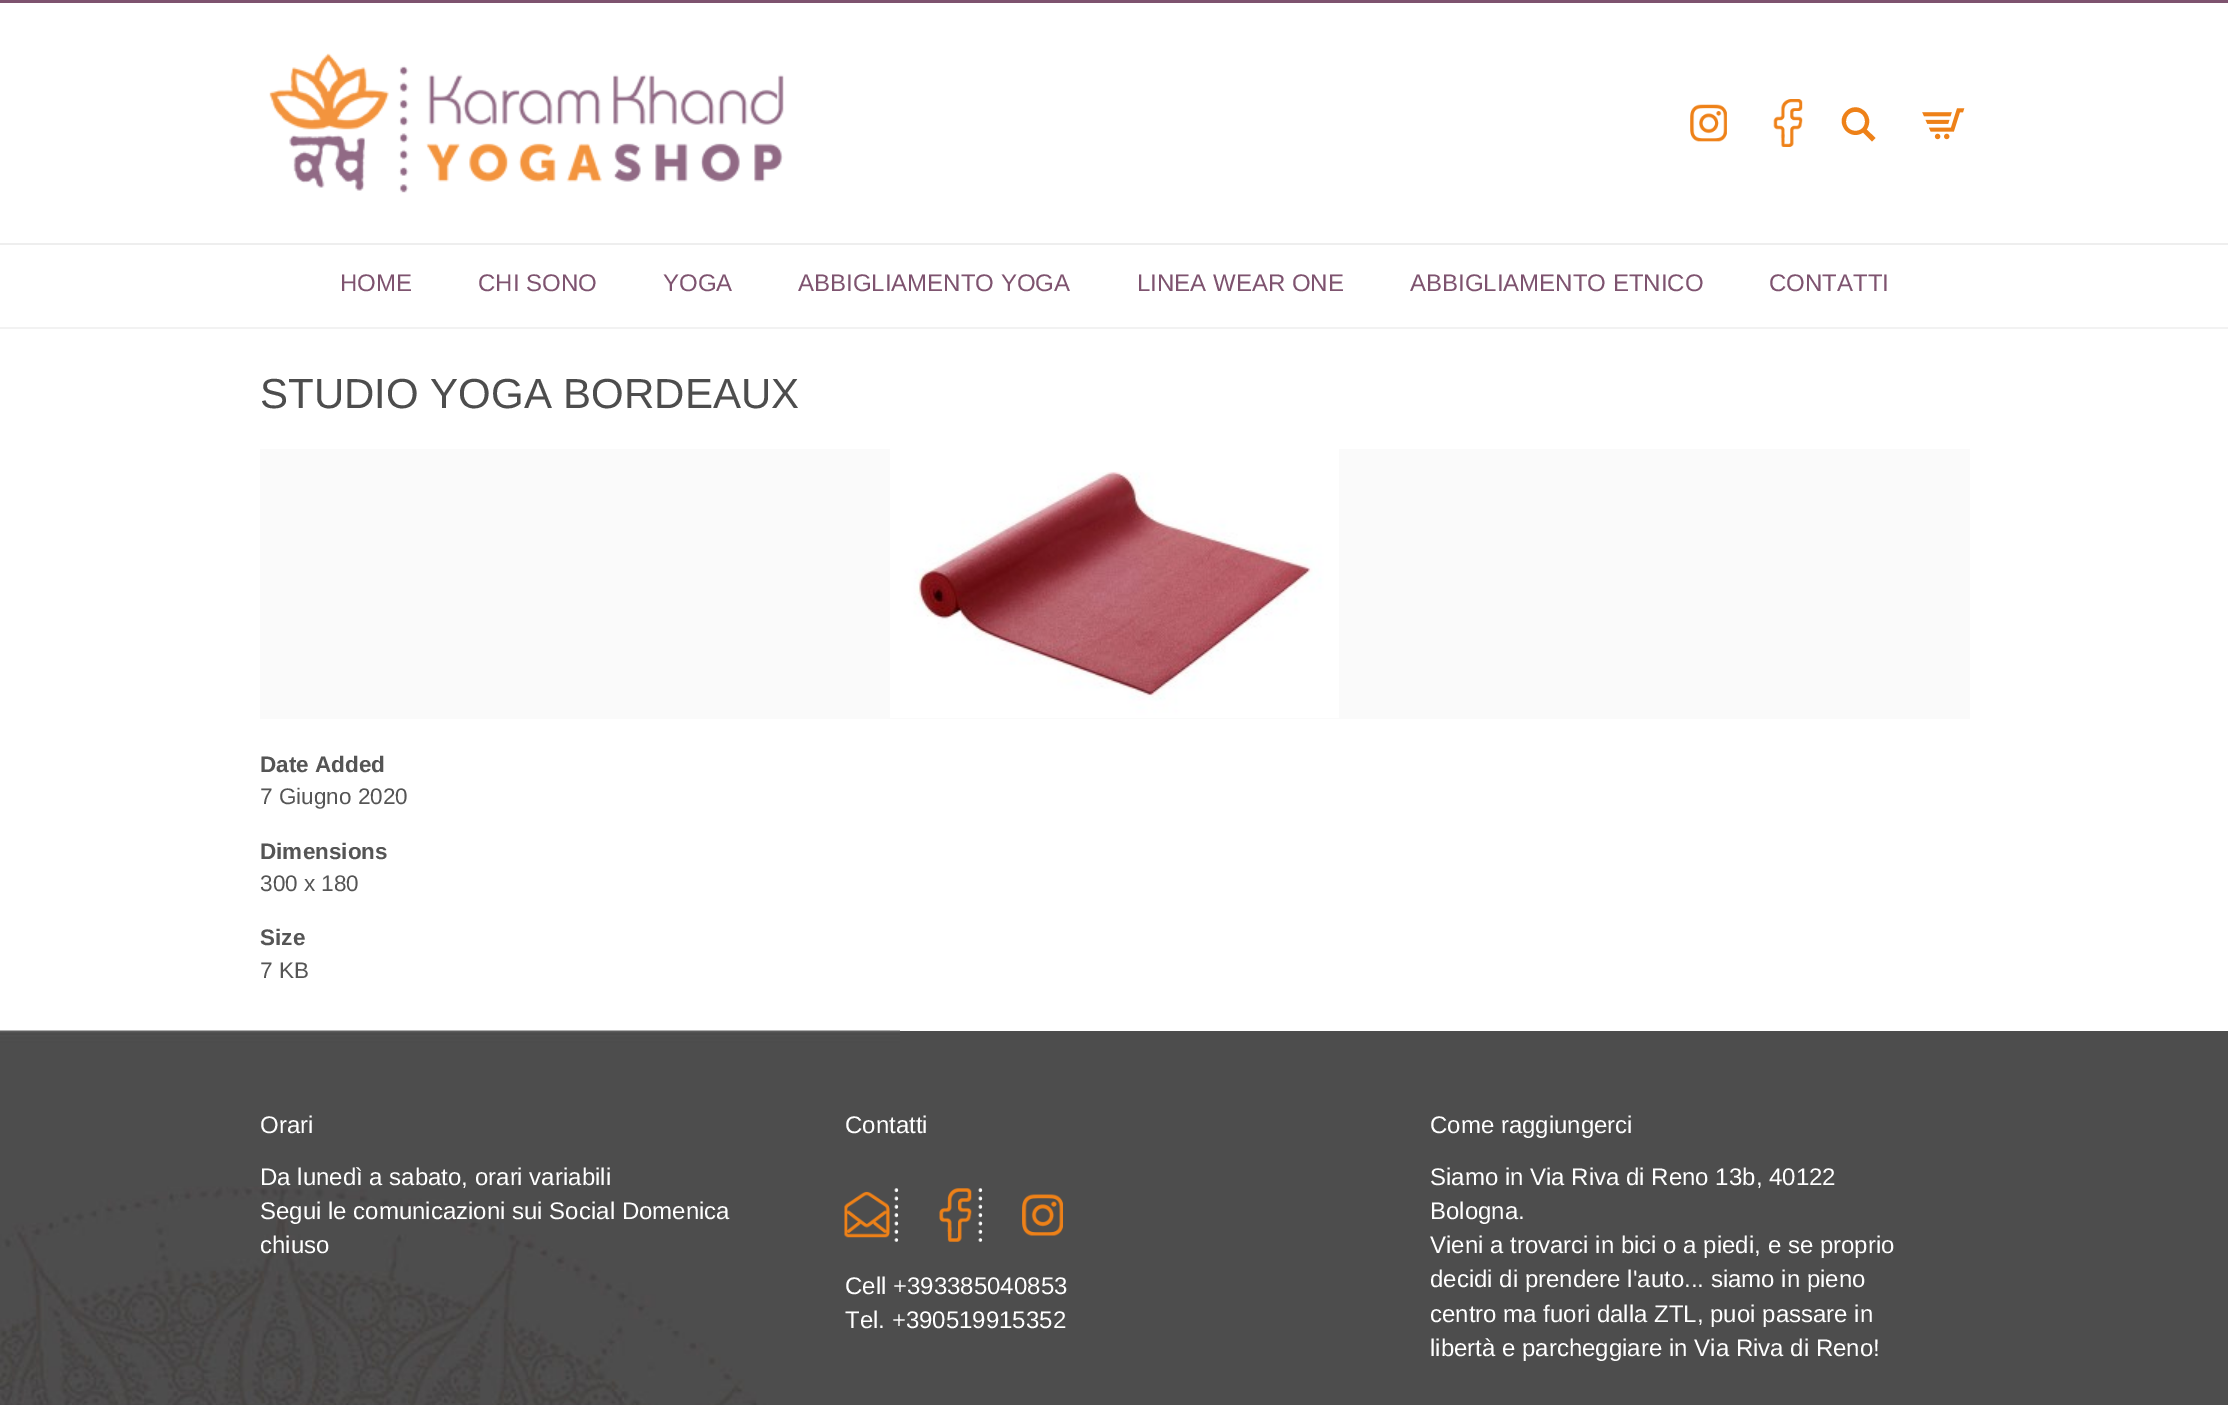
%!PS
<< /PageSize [2228 1405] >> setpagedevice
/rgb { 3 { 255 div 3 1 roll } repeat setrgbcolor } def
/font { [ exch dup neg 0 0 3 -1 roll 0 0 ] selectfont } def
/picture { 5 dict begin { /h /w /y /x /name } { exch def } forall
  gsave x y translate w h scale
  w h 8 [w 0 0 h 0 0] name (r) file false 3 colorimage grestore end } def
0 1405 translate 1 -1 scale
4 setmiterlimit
255 255 255 rgb
0 0 2228 1405 rectfill
242 242 242 rgb
0 327 2228 2 rectfill
126 83 111 rgb
0 0 2228 3 rectfill
(img/1.rgb) 269 53 515 140 picture
(img/2.rgb) 1690 104 37 38 picture
(img/3.rgb) 1773 99 30 48 picture
238 129 24 rgb
1875.5 138 moveto 1866.5 129.5 lineto 1876 116 1858 99.5 1846 111.5 curveto 1834 123.5 1850 141.5 1863 132.5 curveto 1872 141.5 lineto closepath 1846 121.5 moveto 1846 108.5 1865 108.5 1865 121.5 curveto 1865 134 1846 134 1846 121.5 curveto closepath fill
(img/4.rgb) 1922 108 43 32 picture
238 238 238 rgb
0 243 2228 2 rectfill
250 250 250 rgb
260 449 1710 270 rectfill
(img/5.rgb) 890 449 449 269 picture
77 77 77 rgb
900 1031 1328 374 rectfill
(img/6.rgb) 0 1030 900 375 picture
(img/7.rgb) 844 1188 55 54 picture
(img/8.rgb) 939 1188 44 54 picture
(img/9.rgb) 1022 1194 41 42 picture
/LiberationSans-Regular 24 font
126 83 111 rgb
[
  [(HOME) 340 291]
  [(CHI SONO) 478 291]
  [(YOGA) 663 291]
  [(ABBIGLIAMENTO YOGA) 798 291]
  [(LINEA WEAR ONE) 1137 291]
  [(ABBIGLIAMENTO ETNICO) 1410 291]
  [(CONTATTI) 1769 291]
] { aload pop moveto show } forall
/LiberationSans-Regular 42 font
77 77 77 rgb
260 408 moveto (STUDIO YOGA BORDEAUX) show
/LiberationSans-Bold 22.5 font
85 85 85 rgb
260 772 moveto (Date Added) show
/LiberationSans-Regular 22.5 font
260 804 moveto (7 Giugno 2020) show
/LiberationSans-Bold 22.5 font
260 859 moveto (Dimensions) show
/LiberationSans-Regular 22.5 font
260 891 moveto (300 x 180) show
/LiberationSans-Bold 22.5 font
260 945 moveto (Size) show
/LiberationSans-Regular 22.5 font
260 978 moveto (7 KB) show
/LiberationSans-Regular 24 font
255 255 255 rgb
[
  [(Orari) 260 1133]
  [(Da lunedì a sabato, orari variabili) 260 1185]
  [(Segui le comunicazioni sui Social Domenica) 260 1219]
  [(chiuso) 260 1253]
  [(Contatti) 845 1133]
  [(Cell +393385040853) 845 1294]
  [(Tel. +390519915352) 845 1328]
  [(Come raggiungerci) 1430 1133]
  [(Siamo in Via Riva di Reno 13b, 40122) 1430 1185]
  [(Bologna.) 1430 1219]
  [(Vieni a trovarci in bici o a piedi, e se proprio) 1430 1253]
  [(decidi di prendere l'auto... siamo in pieno) 1430 1287]
  [(centro ma fuori dalla ZTL, puoi passare in) 1430 1322]
  [(libertà e parcheggiare in Via Riva di Reno!) 1430 1356]
] { aload pop moveto show } forall
showpage
